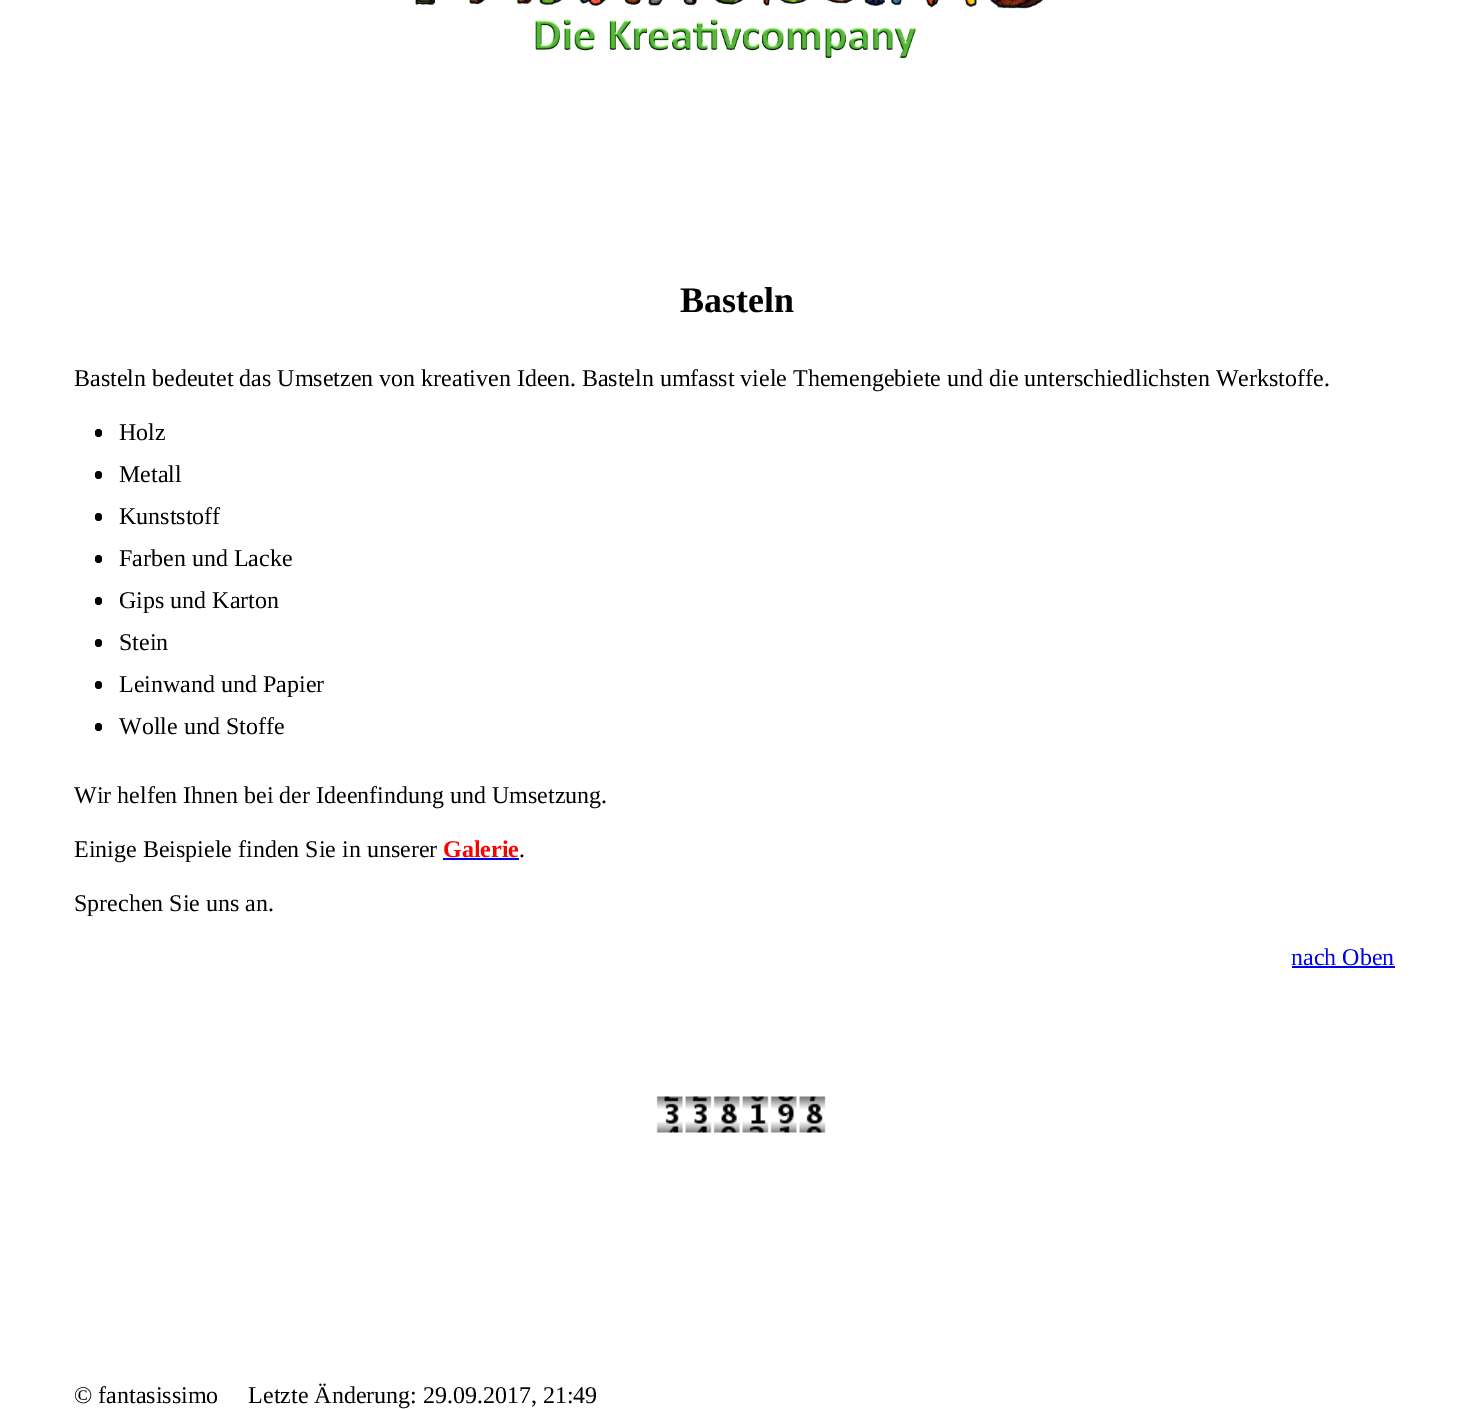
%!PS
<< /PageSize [1474 1409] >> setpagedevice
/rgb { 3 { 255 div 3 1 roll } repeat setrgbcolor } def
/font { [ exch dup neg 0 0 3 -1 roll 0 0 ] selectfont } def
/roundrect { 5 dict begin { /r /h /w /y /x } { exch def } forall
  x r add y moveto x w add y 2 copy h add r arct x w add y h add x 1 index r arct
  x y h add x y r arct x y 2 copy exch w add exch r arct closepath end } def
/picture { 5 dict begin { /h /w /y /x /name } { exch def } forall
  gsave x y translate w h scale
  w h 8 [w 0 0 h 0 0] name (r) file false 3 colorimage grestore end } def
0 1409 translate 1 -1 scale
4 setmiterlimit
255 255 255 rgb
0 0 1474 1409 rectfill
(img/1.rgb) 415 0 629 59 picture
0 0 0 rgb
95 429 7 8 3.5 roundrect fill
95 471 7 8 3.5 roundrect fill
95 513 7 8 3.5 roundrect fill
95 555 7 8 3.5 roundrect fill
95 597 7 8 3.5 roundrect fill
95 639 7 8 3.5 roundrect fill
95 681 7 8 3.5 roundrect fill
95 723 7 8 3.5 roundrect fill
0 0 238 rgb
443 858 76 2 rectfill
1292 966 103 2 rectfill
(img/2.rgb) 656 1096 170 37 picture
/LiberationSerif-Bold 36 font
0 0 0 rgb
680 312 moveto (Basteln) show
/LiberationSerif-Regular 24 font
[
  [(Basteln bedeutet das Umsetzen von kreativen Ideen. Basteln umfasst viele Themengebiete und die unterschiedlichsten Werkstoffe.) 74 386]
  [(Holz) 119 440]
  [(Metall) 119 482]
  [(Kunststoff) 119 524]
  [(Farben und Lacke) 119 566]
  [(Gips und Karton) 119 608]
  [(Stein) 119 650]
  [(Leinwand und Papier) 119 692]
  [(Wolle und Stoffe) 119 734]
  [(Wir helfen Ihnen bei der Ideenfindung und Umsetzung.) 74 803]
  [(Einige Beispiele finden Sie in unserer) 74 857]
] { aload pop moveto show } forall
/LiberationSerif-Bold 24 font
255 0 0 rgb
443 857 moveto (Galerie) show
/LiberationSerif-Regular 24 font
0 0 0 rgb
519 857 moveto (.) show
74 911 moveto (Sprechen Sie uns an.) show
0 0 238 rgb
1291 965 moveto (nach Oben) show
0 0 0 rgb
74 1403 moveto (© fantasissimo     Letzte Änderung: 29.09.2017, 21:49) show
showpage
